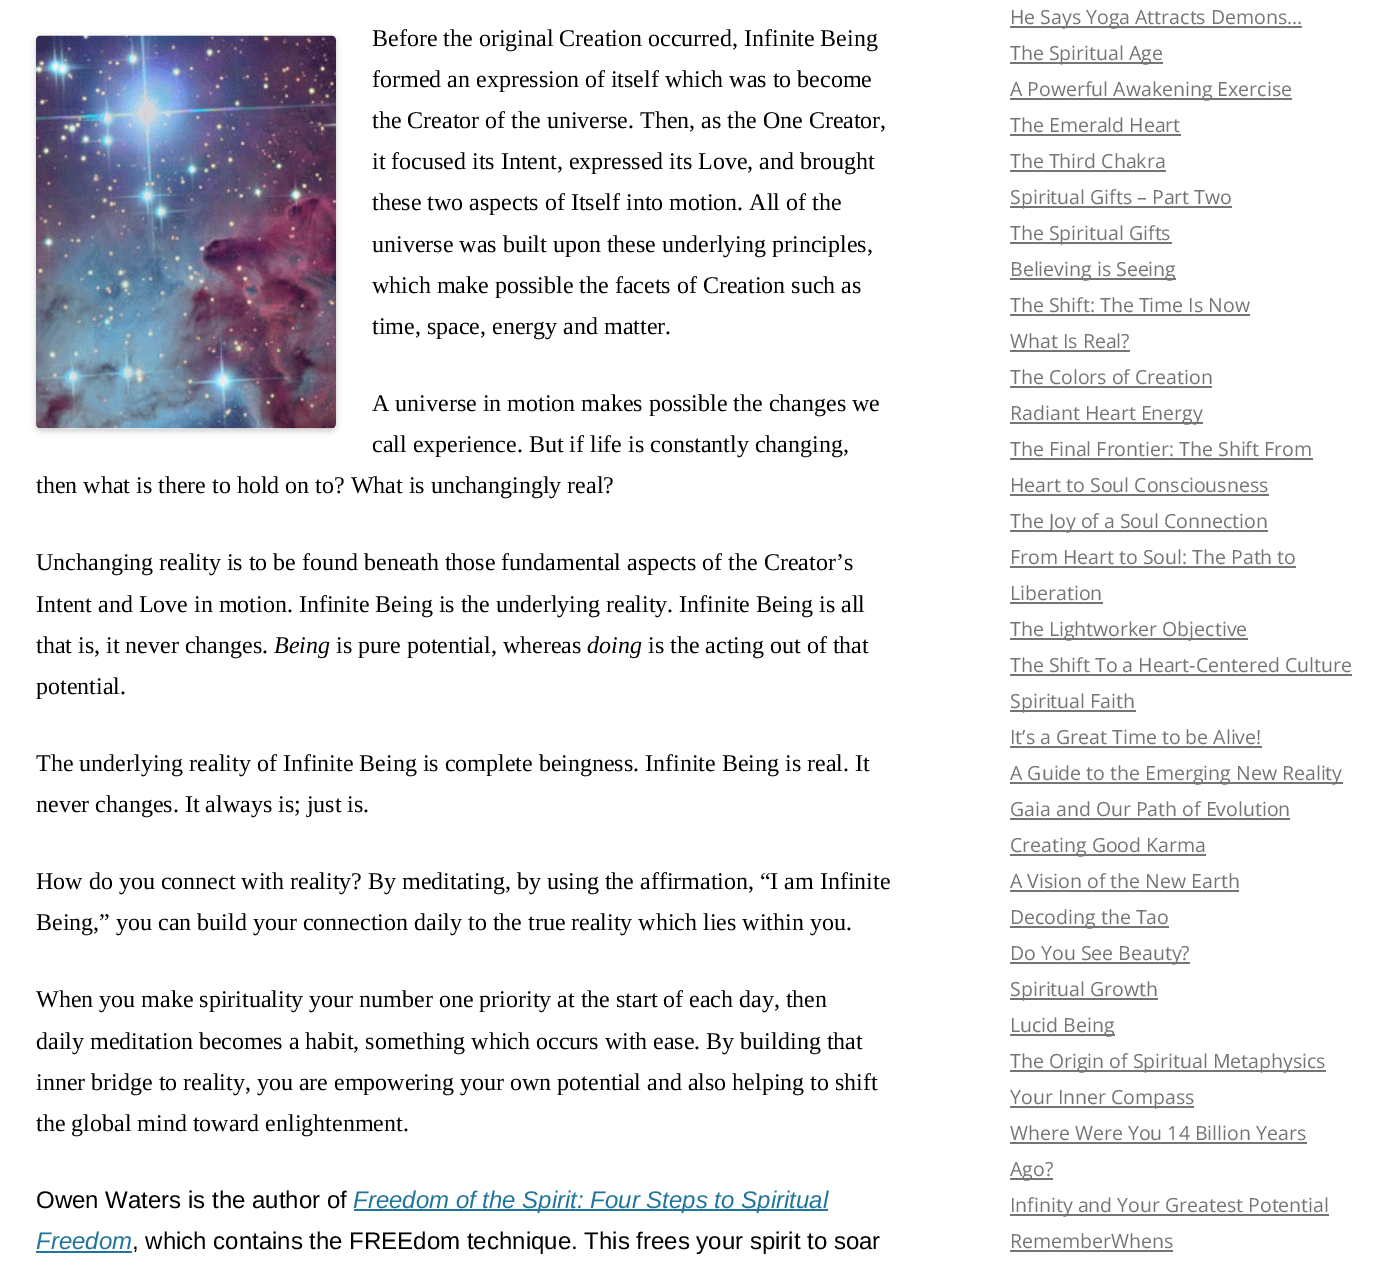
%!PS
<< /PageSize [1389 1272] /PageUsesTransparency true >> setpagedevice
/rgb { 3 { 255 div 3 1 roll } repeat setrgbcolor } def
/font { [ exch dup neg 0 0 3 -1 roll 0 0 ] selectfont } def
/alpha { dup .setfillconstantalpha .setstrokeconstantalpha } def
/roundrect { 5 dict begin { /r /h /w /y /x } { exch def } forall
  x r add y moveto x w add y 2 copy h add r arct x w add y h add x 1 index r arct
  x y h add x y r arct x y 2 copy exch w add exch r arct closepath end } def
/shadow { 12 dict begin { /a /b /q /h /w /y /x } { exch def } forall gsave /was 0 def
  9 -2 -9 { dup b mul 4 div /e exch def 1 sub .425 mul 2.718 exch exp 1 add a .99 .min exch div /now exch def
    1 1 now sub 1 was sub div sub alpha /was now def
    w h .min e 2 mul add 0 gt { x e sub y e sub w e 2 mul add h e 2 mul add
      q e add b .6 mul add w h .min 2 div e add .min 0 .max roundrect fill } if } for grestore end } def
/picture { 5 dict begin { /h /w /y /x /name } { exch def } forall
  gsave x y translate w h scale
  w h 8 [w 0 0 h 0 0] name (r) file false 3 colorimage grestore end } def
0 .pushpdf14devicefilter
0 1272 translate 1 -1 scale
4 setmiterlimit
255 255 255 rgb
0 0 1389 1272 rectfill
0 0 0 rgb
36 38 300 393 5 3 0.2 shadow
(img/1.rgb) 36 35 300 394 picture
[
  [354 1209 474 2 33 117 155]
  [36 1251 96 2 33 117 155]
  [1010 26 292 2 117 117 117]
  [1010 62 153 2 117 117 117]
  [1010 98 282 2 117 117 117]
  [1010 134 171 2 117 117 117]
  [1010 170 156 2 117 117 117]
  [1010 206 222 2 117 117 117]
  [1010 242 162 2 117 117 117]
  [1010 278 166 2 117 117 117]
  [1010 314 240 2 117 117 117]
  [1010 350 120 2 117 117 117]
  [1010 386 202 2 117 117 117]
  [1010 422 193 2 117 117 117]
  [1010 458 303 2 117 117 117]
  [1010 494 259 2 117 117 117]
  [1010 530 258 2 117 117 117]
  [1010 566 286 2 117 117 117]
  [1010 602 93 2 117 117 117]
  [1010 638 238 2 117 117 117]
  [1010 674 342 2 117 117 117]
  [1010 710 126 2 117 117 117]
  [1010 746 252 2 117 117 117]
  [1010 782 333 2 117 117 117]
  [1010 818 280 2 117 117 117]
  [1010 854 196 2 117 117 117]
  [1010 890 229 2 117 117 117]
  [1010 926 159 2 117 117 117]
  [1010 962 180 2 117 117 117]
  [1010 998 148 2 117 117 117]
  [1010 1034 105 2 117 117 117]
  [1010 1070 316 2 117 117 117]
  [1010 1106 184 2 117 117 117]
  [1010 1142 297 2 117 117 117]
  [1010 1178 43 2 117 117 117]
  [1010 1214 319 2 117 117 117]
  [1010 1250 163 2 117 117 117]
] { aload pop rgb rectfill } forall
/LiberationSerif-Regular 24 font
0 0 0 rgb
[
  [(Before the original Creation occurred, Infinite Being) 372 46]
  [(formed an expression of itself which was to become) 372 87]
  [(the Creator of the universe. Then, as the One Creator,) 372 128]
  [(it focused its Intent, expressed its Love, and brought) 372 169]
  [(these two aspects of Itself into motion. All of the) 372 210]
  [(universe was built upon these underlying principles,) 372 252]
  [(which make possible the facets of Creation such as) 372 293]
  [(time, space, energy and matter.) 372 334]
  [(A universe in motion makes possible the changes we) 372 411]
  [(call experience. But if life is constantly changing,) 372 452]
  [(then what is there to hold on to? What is unchangingly real?) 36 493]
  [(Unchanging reality is to be found beneath those fundamental aspects of the Creator’s) 36 570]
  [(Intent and Love in motion. Infinite Being is the underlying reality. Infinite Being is all) 36 612]
  [(that is, it never changes.) 36 653]
] { aload pop moveto show } forall
/LiberationSerif-Italic 24 font
274 653 moveto (Being) show
/LiberationSerif-Regular 24 font
336 653 moveto (is pure potential, whereas) show
/LiberationSerif-Italic 24 font
587 653 moveto (doing) show
/LiberationSerif-Regular 24 font
[
  [(is the acting out of that) 648 653]
  [(potential.) 36 694]
  [(The underlying reality of Infinite Being is complete beingness. Infinite Being is real. It) 36 771]
  [(never changes. It always is; just is.) 36 812]
  [(How do you connect with reality? By meditating, by using the affirmation, “I am Infinite) 36 889]
  [(Being,” you can build your connection daily to the true reality which lies within you.) 36 930]
  [(When you make spirituality your number one priority at the start of each day, then) 36 1007]
  [(daily meditation becomes a habit, something which occurs with ease. By building that) 36 1049]
  [(inner bridge to reality, you are empowering your own potential and also helping to shift) 36 1090]
  [(the global mind toward enlightenment.) 36 1131]
] { aload pop moveto show } forall
/LiberationSans-Regular 24 font
36 1208 moveto (Owen Waters is the author of) show
/LiberationSans-Italic 24 font
33 117 155 rgb
353 1208 moveto (Freedom of the Spirit: Four Steps to Spiritual) show
36 1249 moveto (Freedom) show
/LiberationSans-Regular 24 font
0 0 0 rgb
132 1249 moveto (, which contains the FREEdom technique. This frees your spirit to soar) show
/OpenSans-Regular 19.5 font
117 117 117 rgb
[
  [(He Says Yoga Attracts Demons…) 1010 24]
  [(The Spiritual Age) 1010 60]
  [(A Powerful Awakening Exercise) 1010 96]
  [(The Emerald Heart) 1010 132]
  [(The Third Chakra) 1010 168]
  [(Spiritual Gifts – Part Two) 1010 204]
  [(The Spiritual Gifts) 1010 240]
  [(Believing is Seeing) 1010 276]
  [(The Shift: The Time Is Now) 1010 312]
  [(What Is Real?) 1010 348]
  [(The Colors of Creation) 1010 384]
  [(Radiant Heart Energy) 1010 420]
  [(The Final Frontier: The Shift From) 1010 456]
  [(Heart to Soul Consciousness) 1010 492]
  [(The Joy of a Soul Connection) 1010 528]
  [(From Heart to Soul: The Path to) 1010 564]
  [(Liberation) 1010 600]
  [(The Lightworker Objective) 1010 636]
  [(The Shift To a Heart-Centered Culture) 1010 672]
  [(Spiritual Faith) 1010 708]
  [(It’s a Great Time to be Alive!) 1010 744]
  [(A Guide to the Emerging New Reality) 1010 780]
  [(Gaia and Our Path of Evolution) 1010 816]
  [(Creating Good Karma) 1010 852]
  [(A Vision of the New Earth) 1010 888]
  [(Decoding the Tao) 1010 924]
  [(Do You See Beauty?) 1010 960]
  [(Spiritual Growth) 1010 996]
  [(Lucid Being) 1010 1032]
  [(The Origin of Spiritual Metaphysics) 1010 1068]
  [(Your Inner Compass) 1010 1104]
  [(Where Were You 14 Billion Years) 1010 1140]
  [(Ago?) 1010 1176]
  [(Infinity and Your Greatest Potential) 1010 1212]
  [(RememberWhens) 1010 1248]
] { aload pop moveto show } forall
.poppdf14devicefilter showpage
